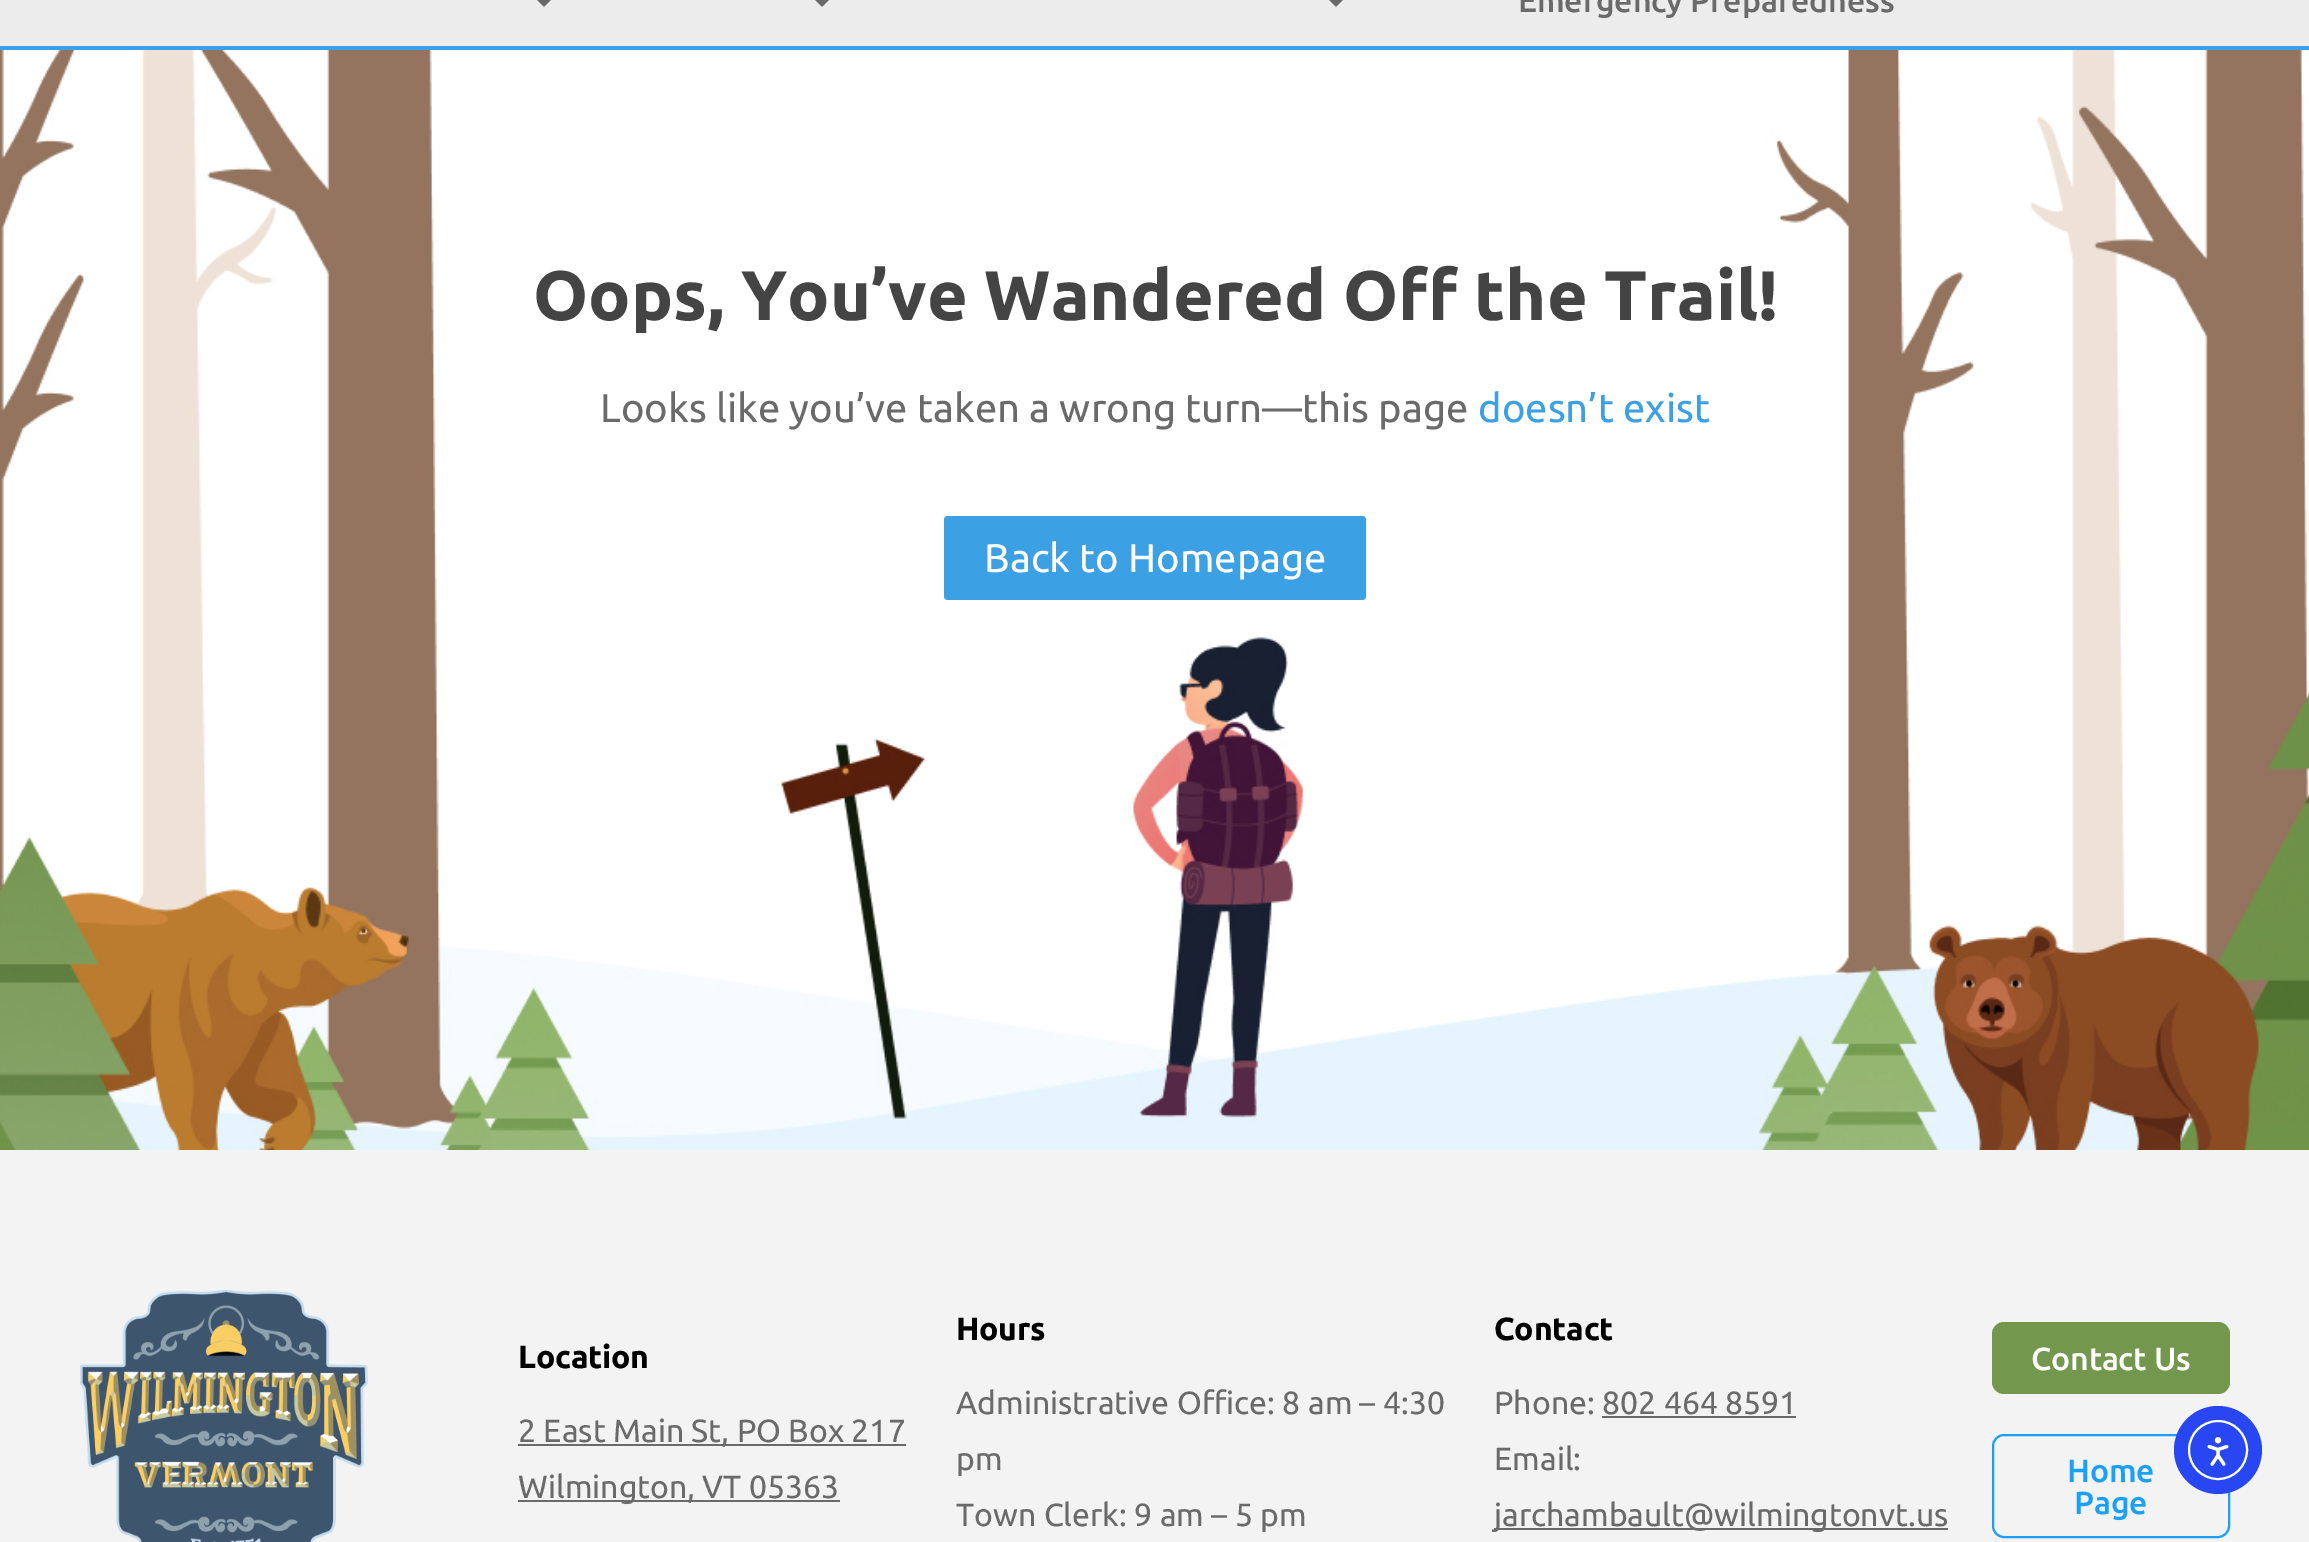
%!PS
<< /PageSize [2309 1542] >> setpagedevice
/rgb { 3 { 255 div 3 1 roll } repeat setrgbcolor } def
/font { [ exch dup neg 0 0 3 -1 roll 0 0 ] selectfont } def
/circle { newpath 0 360 arc closepath } def
/roundrect { 5 dict begin { /r /h /w /y /x } { exch def } forall
  x r add y moveto x w add y 2 copy h add r arct x w add y h add x 1 index r arct
  x y h add x y r arct x y 2 copy exch w add exch r arct closepath end } def
/picture { 5 dict begin { /h /w /y /x /name } { exch def } forall
  gsave x y translate w h scale
  w h 8 [w 0 0 h 0 0] name (r) file false 3 colorimage grestore end } def
0 1542 translate 1 -1 scale
4 setmiterlimit
236 236 236 rgb
0 0 2309 1542 rectfill
60 160 229 rgb
0 46 2309 4 rectfill
(img/1.rgb) 537 0 14 7 picture
(img/1.rgb) 815 0 14 7 picture
(img/1.rgb) 1329 0 14 7 picture
(img/2.rgb) 0 50 2309 1100 picture
944 516 422 84 4 roundrect fill
243 243 243 rgb
0 1150 2309 392 rectfill
(img/3.rgb) 80 1290 288 252 picture
[
  [518 1444 388 2 106 106 106]
  [518 1500 322 2 106 106 106]
  [1602 1416 194 2 106 106 106]
  [1494 1528 454 2 106 106 106]
] { aload pop rgb rectfill } forall
115 151 77 rgb
1992 1322 238 72 12 roundrect fill
24 160 251 rgb
2 setlinewidth
1993 1435 236 102 11 roundrect stroke
40 71 243 rgb
2218 1450 44 circle fill
255 255 255 rgb
2218 1450 29 circle stroke
(img/4.rgb) 2207 1437 22 29 picture
/Ubuntu-Medium 32 font
106 106 106 rgb
1518 12 moveto (Emergency Preparedness) show
/Ubuntu-Bold 70 font
68 68 68 rgb
533 320 moveto (Oops, You’ve Wandered Off the Trail!) show
/Ubuntu-Regular 40 font
106 106 106 rgb
600 422 moveto (Looks like you’ve taken a wrong turn—this page) show
60 160 229 rgb
1478 422 moveto (doesn’t exist) show
255 255 255 rgb
984 572 moveto (Back to Homepage) show
/Ubuntu-Bold 32 font
0 0 0 rgb
518 1368 moveto -0.25 0 (Location) ashow
/Ubuntu-Regular 32 font
106 106 106 rgb
518 1442 moveto (2 East Main St, PO Box 217) show
518 1498 moveto (Wilmington, VT 05363) show
/Ubuntu-Bold 32 font
0 0 0 rgb
956 1340 moveto -0.25 0 (Hours) ashow
/Ubuntu-Regular 32 font
106 106 106 rgb
[
  [(Administrative Office: 8 am – 4:30) 956 1414]
  [(pm) 956 1470]
  [(Town Clerk: 9 am – 5 pm) 956 1526]
] { aload pop moveto show } forall
/Ubuntu-Bold 32 font
0 0 0 rgb
1494 1340 moveto -0.25 0 (Contact) ashow
/Ubuntu-Regular 32 font
106 106 106 rgb
[
  [(Phone: 802 464 8591) 1494 1414]
  [(Email:) 1494 1470]
  [(jarchambault@wilmingtonvt.us) 1494 1526]
] { aload pop moveto show } forall
/Ubuntu-Medium 32 font
255 255 255 rgb
2031 1370 moveto -0.25 0 (Contact Us) ashow
24 160 251 rgb
2067 1482 moveto -0.25 0 (Home) ashow
2074 1514 moveto -0.25 0 (Page) ashow
showpage
